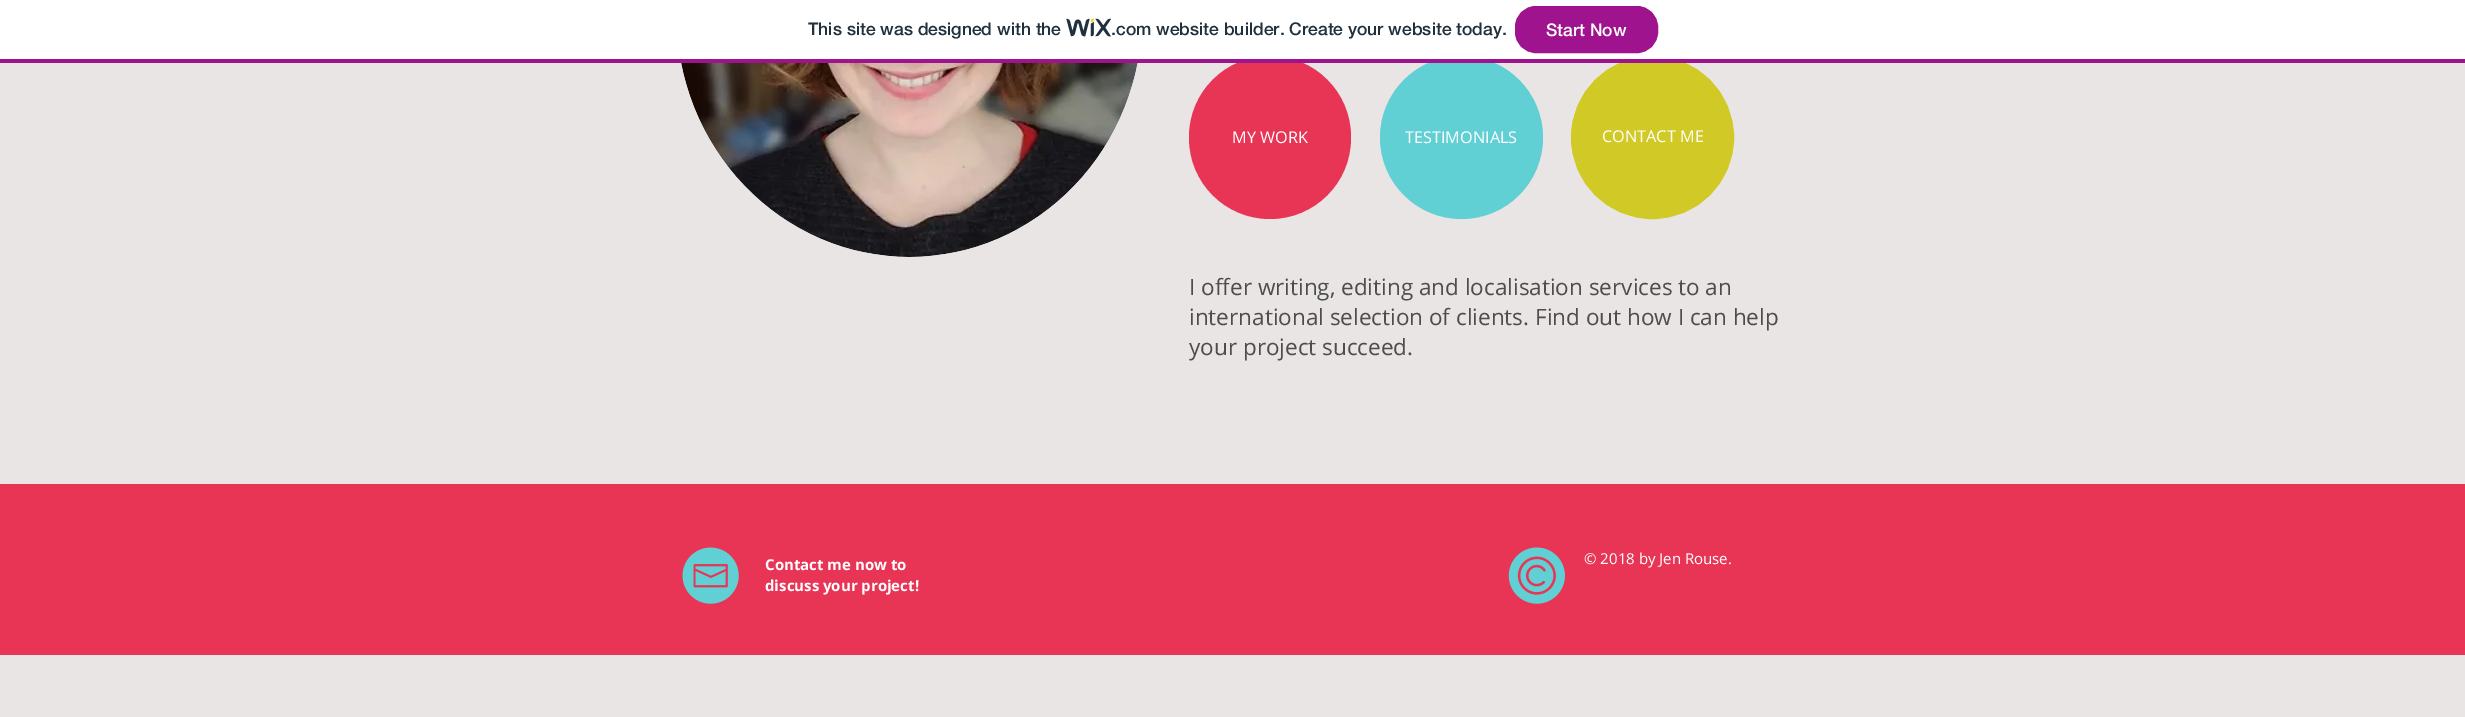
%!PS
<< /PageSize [2465 717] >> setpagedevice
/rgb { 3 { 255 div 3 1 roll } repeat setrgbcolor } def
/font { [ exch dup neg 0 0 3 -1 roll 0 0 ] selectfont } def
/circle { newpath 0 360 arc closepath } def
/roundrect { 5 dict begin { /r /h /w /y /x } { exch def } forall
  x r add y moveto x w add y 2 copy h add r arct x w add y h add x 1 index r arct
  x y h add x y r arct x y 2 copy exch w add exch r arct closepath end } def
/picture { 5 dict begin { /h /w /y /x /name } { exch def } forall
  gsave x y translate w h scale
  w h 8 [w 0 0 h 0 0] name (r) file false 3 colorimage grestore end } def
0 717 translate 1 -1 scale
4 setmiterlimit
234 229 229 rgb
0 0 2465 717 rectfill
232 53 86 rgb
1189 56 162 163 81 roundrect fill
97 208 212 rgb
1461.5 137.5 81.5 circle fill
209 201 38 rgb
1652.5 137.5 81 circle gsave fill grestore
stroke
255 255 255 rgb
0 0 2465 59 rectfill
160 19 142 rgb
0 59 2465 4 rectfill
(img/1.rgb) 1066 18 45 19 picture
1515.5 6.5 142 46 20.5 roundrect gsave fill grestore
stroke
(img/2.rgb) 681 63 457 194 picture
232 53 86 rgb
0 484 2465 171 rectfill
(img/3.rgb) 682 547 57 57 picture
(img/4.rgb) 1508 547 57 57 picture
/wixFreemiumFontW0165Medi-Medium 17.5 font
32 48 60 rgb
808 35 moveto (This site was designed with the) show
1111 35 moveto (.com website builder. Create your website today.) show
255 255 255 rgb
1546 36 moveto (Start Now) show
/OpenSans-Regular 16.25 font
[
  [(MY WORK) 1232 143]
  [(TESTIMONIALS) 1405 143]
  [(CONTACT ME) 1602 142]
] { aload pop moveto show } forall
/OpenSans-Regular 22.5 font
77 77 77 rgb
[
  [(I offer writing, editing and localisation services to an) 1189 295]
  [(international selection of clients. Find out how I can help) 1189 325]
  [(your project succeed.) 1189 355]
] { aload pop moveto show } forall
/OpenSans-Bold 15 font
255 255 255 rgb
765 570 moveto (Contact me now to) show
765 591 moveto (discuss your project!) show
/OpenSans-Regular 15 font
1584 564 moveto (© 2018 by Jen Rouse.) show
showpage
